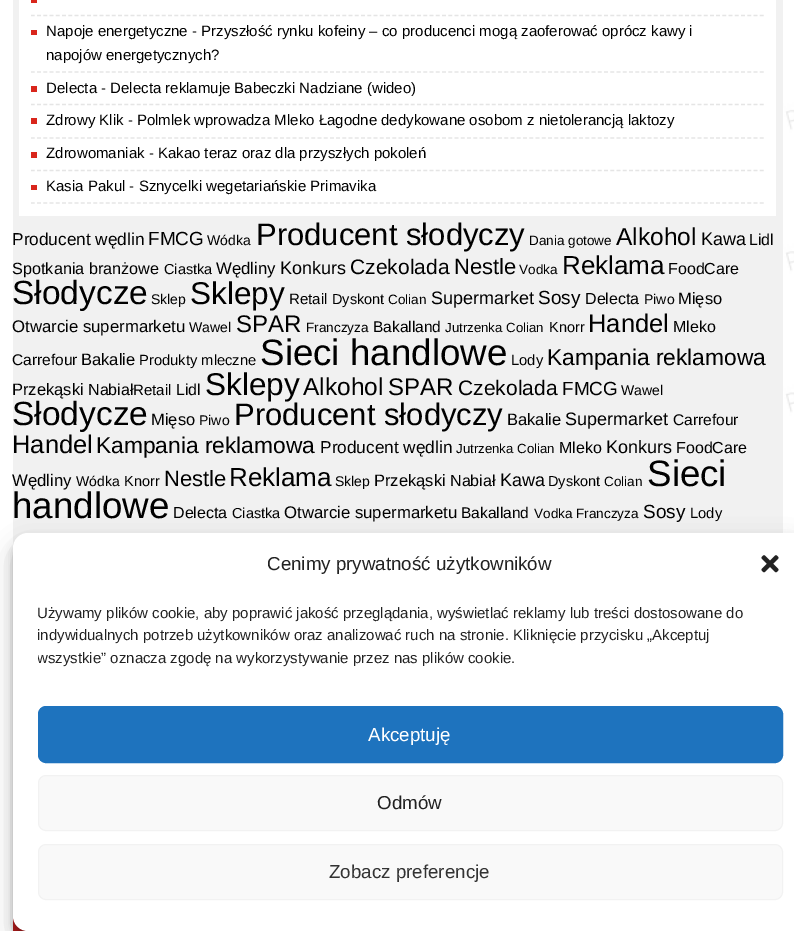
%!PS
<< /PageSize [794 931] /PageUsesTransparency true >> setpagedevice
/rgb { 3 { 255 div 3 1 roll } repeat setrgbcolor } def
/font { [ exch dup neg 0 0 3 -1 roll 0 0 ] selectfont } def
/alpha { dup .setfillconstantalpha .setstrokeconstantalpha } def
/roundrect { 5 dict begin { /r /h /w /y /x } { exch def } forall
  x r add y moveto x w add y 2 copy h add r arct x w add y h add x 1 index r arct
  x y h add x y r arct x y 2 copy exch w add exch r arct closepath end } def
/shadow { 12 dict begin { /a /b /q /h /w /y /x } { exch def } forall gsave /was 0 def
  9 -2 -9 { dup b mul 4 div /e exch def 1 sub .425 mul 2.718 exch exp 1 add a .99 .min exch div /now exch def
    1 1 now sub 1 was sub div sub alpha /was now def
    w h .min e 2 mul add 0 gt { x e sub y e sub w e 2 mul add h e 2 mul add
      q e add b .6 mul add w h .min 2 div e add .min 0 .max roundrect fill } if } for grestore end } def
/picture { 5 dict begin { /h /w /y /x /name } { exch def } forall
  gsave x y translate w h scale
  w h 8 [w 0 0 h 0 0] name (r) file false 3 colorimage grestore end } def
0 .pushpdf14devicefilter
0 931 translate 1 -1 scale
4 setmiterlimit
255 255 255 rgb
0 0 794 931 rectfill
(img/1.rgb) 783 55 11 876 picture
[
  [13 0 770 548 241 241 241]
  [19 0 757 216 255 255 255]
  [31 0 6 3 217 38 28]
] { aload pop rgb rectfill } forall
229 229 229 rgb
1.2 setlinewidth
[3.75 2.48] 0 setdash
31 15.5 moveto 764 15.5 lineto stroke
217 38 28 rgb
31 30 6 5 rectfill
229 229 229 rgb
31 72 moveto 764 72 lineto stroke
217 38 28 rgb
31 86 6 6 rectfill
229 229 229 rgb
31 104.5 moveto 764 104.5 lineto stroke
217 38 28 rgb
31 118 6 6 rectfill
229 229 229 rgb
31 138 moveto 764 138 lineto stroke
217 38 28 rgb
31 152 6 6 rectfill
229 229 229 rgb
31 170.5 moveto 764 170.5 lineto stroke
217 38 28 rgb
31 185 6 5 rectfill
229 229 229 rgb
31 203 moveto 764 203 lineto stroke
189 28 28 rgb
13 916 15 15 rectfill
0 0 0 rgb
13 540 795 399 15 4 0.23 shadow
13 545 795 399 15 12.5 0.19 shadow
255 255 255 rgb
13 533 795 398 15 roundrect fill
(img/2.rgb) 761 555 18 18 picture
30 115 190 rgb
38.5 706.5 744 56 7.5 roundrect gsave fill grestore
1 setlinewidth
[] 0 setdash
stroke
249 249 249 rgb
38.5 775.5 744 55 7.5 roundrect gsave fill grestore
242 242 242 rgb
stroke
249 249 249 rgb
38.5 844.5 744 55 7.5 roundrect gsave fill grestore
242 242 242 rgb
stroke
/LiberationSans-Regular 15 font
0 0 0 rgb
[
  [(Napoje energetyczne - Przyszłość rynku kofeiny – co producenci mogą zaoferować oprócz kawy i) 46 36]
  [(napojów energetycznych?) 46 60]
  [(Delecta - Delecta reklamuje Babeczki Nadziane \(wideo\)) 46 93]
  [(Zdrowy Klik - Polmlek wprowadza Mleko Łagodne dedykowane osobom z nietolerancją laktozy) 46 125]
  [(Zdrowomaniak - Kakao teraz oraz dla przyszłych pokoleń) 46 158]
  [(Kasia Pakul - Sznycelki wegetariańskie Primavika) 46 191]
] { aload pop moveto show } forall
/LiberationSans-Regular 17.25 font
12 245 moveto (Producent wędlin) show
/LiberationSans-Regular 19 font
148 245 moveto (FMCG) show
/LiberationSans-Regular 14 font
207 245 moveto (Wódka) show
/LiberationSans-Regular 31 font
256 245 moveto (Producent słodyczy) show
/LiberationSans-Regular 13.5 font
529 245 moveto (Dania gotowe) show
/LiberationSans-Regular 24.5 font
616 245 moveto (Alkohol) show
/LiberationSans-Regular 18 font
701 245 moveto (Kawa) show
/LiberationSans-Regular 16 font
749 245 moveto (Lidl) show
/LiberationSans-Regular 16.25 font
12 274 moveto (Spotkania branżowe) show
/LiberationSans-Regular 14.5 font
164 274 moveto (Ciastka) show
/LiberationSans-Regular 16.75 font
216 274 moveto (Wędliny) show
/LiberationSans-Regular 18 font
280 274 moveto (Konkurs) show
/LiberationSans-Regular 21 font
350 274 moveto (Czekolada) show
/LiberationSans-Regular 22 font
454 274 moveto (Nestle) show
/LiberationSans-Regular 13.5 font
519 274 moveto (Vodka) show
/LiberationSans-Regular 26 font
562 274 moveto (Reklama) show
/LiberationSans-Regular 16 font
668 274 moveto (FoodCare) show
/LiberationSans-Regular 33.5 font
12 304 moveto (Słodycze) show
/LiberationSans-Regular 14 font
151 304 moveto (Sklep) show
/LiberationSans-Regular 31.5 font
190 304 moveto (Sklepy) show
/LiberationSans-Regular 15 font
289 304 moveto (Retail) show
/LiberationSans-Regular 14.5 font
332 304 moveto (Dyskont) show
/LiberationSans-Regular 13.5 font
388 304 moveto (Colian) show
/LiberationSans-Regular 18 font
431 304 moveto (Supermarket) show
/LiberationSans-Regular 19 font
538 304 moveto (Sosy) show
/LiberationSans-Regular 16 font
585 304 moveto (Delecta) show
/LiberationSans-Regular 14 font
644 304 moveto (Piwo) show
/LiberationSans-Regular 16.5 font
678 304 moveto (Mięso) show
/LiberationSans-Regular 16.75 font
12 332 moveto (Otwarcie supermarketu) show
/LiberationSans-Regular 14 font
189 332 moveto (Wawel) show
/LiberationSans-Regular 24 font
236 332 moveto (SPAR) show
/LiberationSans-Regular 13.5 font
306 332 moveto (Franczyza) show
/LiberationSans-Regular 15.5 font
373 332 moveto (Bakalland) show
/LiberationSans-Regular 13.25 font
445 332 moveto (Jutrzenka Colian) show
/LiberationSans-Regular 14.5 font
549 332 moveto (Knorr) show
/LiberationSans-Regular 25.5 font
588 332 moveto (Handel) show
/LiberationSans-Regular 16 font
673 332 moveto (Mleko) show
/LiberationSans-Regular 15.5 font
12 365 moveto (Carrefour) show
/LiberationSans-Regular 16.5 font
81 365 moveto (Bakalie) show
/LiberationSans-Regular 14.75 font
139 365 moveto (Produkty mleczne) show
/LiberationSans-Regular 36.75 font
260 365 moveto (Sieci handlowe) show
/LiberationSans-Regular 14.75 font
511 365 moveto (Lody) show
/LiberationSans-Regular 22.75 font
547 365 moveto (Kampania reklamowa) show
/LiberationSans-Regular 16.5 font
12 395 moveto (Przekąski) show
/LiberationSans-Regular 16 font
88 395 moveto (Nabiał) show
/LiberationSans-Regular 15 font
133 395 moveto (Retail) show
/LiberationSans-Regular 16 font
176 395 moveto (Lidl) show
/LiberationSans-Regular 31.5 font
205 395 moveto (Sklepy) show
/LiberationSans-Regular 24.5 font
303 395 moveto (Alkohol) show
/LiberationSans-Regular 24 font
388 395 moveto (SPAR) show
/LiberationSans-Regular 21 font
458 395 moveto (Czekolada) show
/LiberationSans-Regular 19 font
562 395 moveto (FMCG) show
/LiberationSans-Regular 14 font
621 395 moveto (Wawel) show
/LiberationSans-Regular 33.5 font
12 425 moveto (Słodycze) show
/LiberationSans-Regular 16.5 font
151 425 moveto (Mięso) show
/LiberationSans-Regular 14 font
199 425 moveto (Piwo) show
/LiberationSans-Regular 31 font
234 425 moveto (Producent słodyczy) show
/LiberationSans-Regular 16.5 font
507 425 moveto (Bakalie) show
/LiberationSans-Regular 18 font
565 425 moveto (Supermarket) show
/LiberationSans-Regular 15.5 font
673 425 moveto (Carrefour) show
/LiberationSans-Regular 25.5 font
12 453 moveto (Handel) show
/LiberationSans-Regular 22.75 font
96 453 moveto (Kampania reklamowa) show
/LiberationSans-Regular 17.25 font
320 453 moveto (Producent wędlin) show
/LiberationSans-Regular 13.25 font
456 453 moveto (Jutrzenka Colian) show
/LiberationSans-Regular 16 font
559 453 moveto (Mleko) show
/LiberationSans-Regular 18 font
606 453 moveto (Konkurs) show
/LiberationSans-Regular 16 font
676 453 moveto (FoodCare) show
/LiberationSans-Regular 16.75 font
12 486 moveto (Wędliny) show
/LiberationSans-Regular 14 font
76 486 moveto (Wódka) show
/LiberationSans-Regular 14.5 font
124 486 moveto (Knorr) show
/LiberationSans-Regular 22 font
164 486 moveto (Nestle) show
/LiberationSans-Regular 26 font
229 486 moveto (Reklama) show
/LiberationSans-Regular 14 font
335 486 moveto (Sklep) show
/LiberationSans-Regular 16.5 font
374 486 moveto (Przekąski) show
/LiberationSans-Regular 16 font
450 486 moveto (Nabiał) show
/LiberationSans-Regular 18 font
500 486 moveto (Kawa) show
/LiberationSans-Regular 14.5 font
548 486 moveto (Dyskont) show
/LiberationSans-Regular 13.5 font
604 486 moveto (Colian) show
/LiberationSans-Regular 36.75 font
647 486 moveto (Sieci) show
12 518 moveto (handlowe) show
/LiberationSans-Regular 16 font
173 518 moveto (Delecta) show
/LiberationSans-Regular 14.5 font
232 518 moveto (Ciastka) show
/LiberationSans-Regular 16.75 font
284 518 moveto (Otwarcie supermarketu) show
/LiberationSans-Regular 15.5 font
461 518 moveto (Bakalland) show
/LiberationSans-Regular 13.5 font
534 518 moveto (Vodka) show
576 518 moveto (Franczyza) show
/LiberationSans-Regular 19 font
643 518 moveto (Sosy) show
/LiberationSans-Regular 14.75 font
690 518 moveto (Lody) show
/LiberationSans-Regular 18.75 font
34 34 34 rgb
267 570 moveto (Cenimy prywatność użytkowników) show
/LiberationSans-Regular 15 font
37 618 moveto (Używamy plików cookie, aby poprawić jakość przeglądania, wyświetlać reklamy lub treści dostosowane do) show
gsave
38 601 745 80 rectclip
37 640 moveto (indywidualnych potrzeb użytkowników oraz analizować ruch na stronie. Kliknięcie przycisku „Akceptuj) show
37 663 moveto (wszystkie” oznacza zgodę na wykorzystywanie przez nas plików cookie.) show
grestore
/LiberationSans-Regular 18.75 font
255 255 255 rgb
368 741 moveto (Akceptuję) show
34 34 34 rgb
377 809 moveto (Odmów) show
51 51 51 rgb
329 878 moveto (Zobacz preferencje) show
.poppdf14devicefilter showpage
